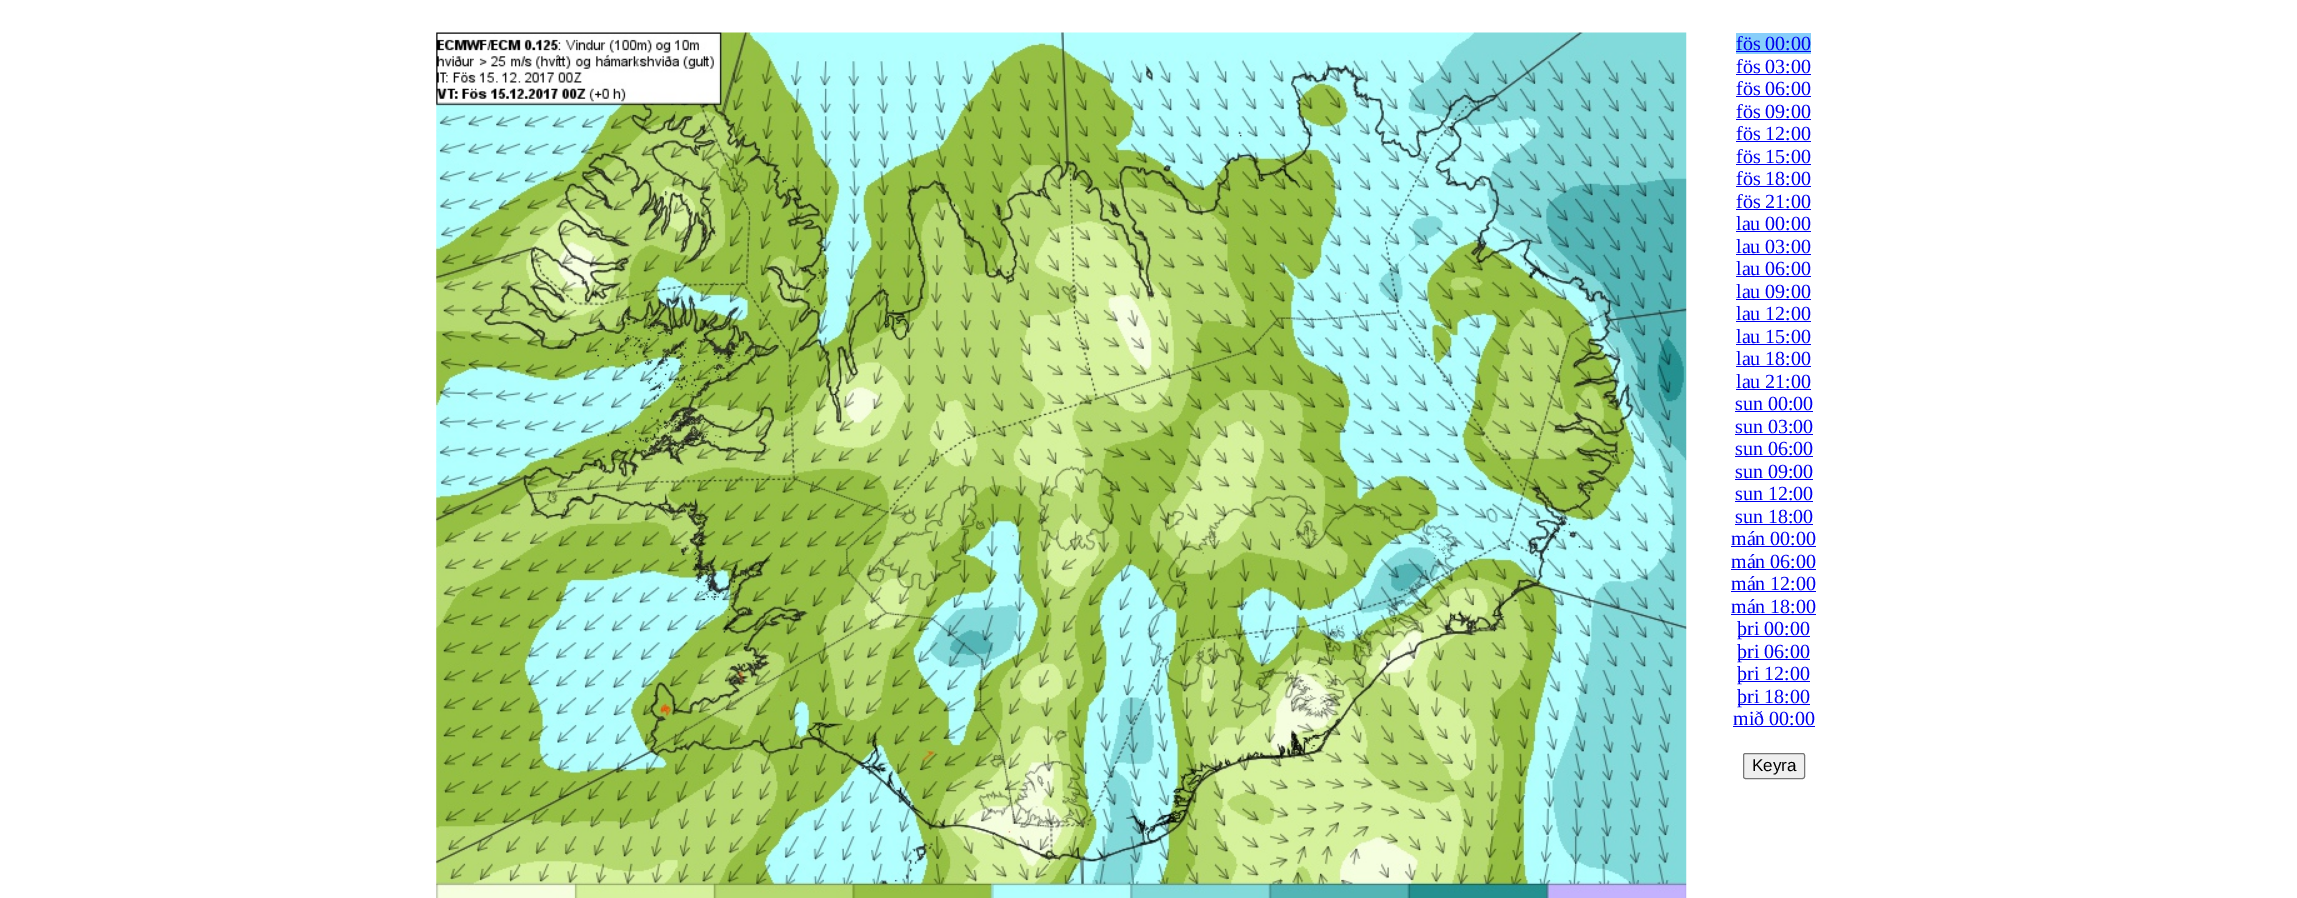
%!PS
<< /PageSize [2297 898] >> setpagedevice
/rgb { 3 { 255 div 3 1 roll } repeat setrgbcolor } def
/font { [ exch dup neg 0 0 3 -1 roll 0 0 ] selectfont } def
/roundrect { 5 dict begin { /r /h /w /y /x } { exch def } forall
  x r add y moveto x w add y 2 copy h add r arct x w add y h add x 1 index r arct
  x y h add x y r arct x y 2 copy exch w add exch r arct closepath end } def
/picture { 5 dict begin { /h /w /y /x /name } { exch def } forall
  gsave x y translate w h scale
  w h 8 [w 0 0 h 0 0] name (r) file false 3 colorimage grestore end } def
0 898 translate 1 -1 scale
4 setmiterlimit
255 255 255 rgb
0 0 2297 898 rectfill
(img/1.rgb) 436 32 1251 866 picture
[
  [1736 33 75 21 135 206 250]
  [1736 51 75 1 0 0 238]
  [1736 74 75 1 0 0 238]
  [1736 96 75 1 0 0 238]
  [1736 119 75 1 0 0 238]
  [1736 141 75 1 0 0 238]
  [1736 164 75 1 0 0 238]
  [1736 186 75 1 0 0 238]
  [1736 209 75 1 0 0 238]
  [1736 231 75 1 0 0 238]
  [1736 254 75 1 0 0 238]
  [1736 276 75 1 0 0 238]
  [1736 299 75 1 0 0 238]
  [1736 321 75 1 0 0 238]
  [1736 344 75 1 0 0 238]
  [1736 366 75 1 0 0 238]
  [1736 389 75 1 0 0 238]
  [1735 411 78 1 0 0 238]
  [1735 434 78 1 0 0 238]
  [1735 456 78 1 0 0 238]
  [1735 479 78 1 0 0 238]
  [1735 501 78 1 0 0 238]
  [1735 524 78 1 0 0 238]
  [1731 546 85 1 0 0 238]
  [1731 569 85 1 0 0 238]
  [1731 591 85 1 0 0 238]
  [1731 614 85 1 0 0 238]
  [1738 636 72 1 0 0 238]
  [1738 659 72 1 0 0 238]
  [1738 681 72 1 0 0 238]
  [1738 704 72 1 0 0 238]
  [1733 726 82 1 0 0 238]
] { aload pop rgb rectfill } forall
239 239 239 rgb
1743.5 753.5 61 25 2 roundrect gsave fill grestore
118 118 118 rgb
stroke
/LiberationSerif-Regular 20 font
0 0 238 rgb
[
  [(fös 00:00) 1736 50]
  [(fös 03:00) 1736 73]
  [(fös 06:00) 1736 95]
  [(fös 09:00) 1736 118]
  [(fös 12:00) 1736 140]
  [(fös 15:00) 1736 163]
  [(fös 18:00) 1736 185]
  [(fös 21:00) 1736 208]
  [(lau 00:00) 1736 230]
  [(lau 03:00) 1736 253]
  [(lau 06:00) 1736 275]
  [(lau 09:00) 1736 298]
  [(lau 12:00) 1736 320]
  [(lau 15:00) 1736 343]
  [(lau 18:00) 1736 365]
  [(lau 21:00) 1736 388]
  [(sun 00:00) 1735 410]
  [(sun 03:00) 1735 433]
  [(sun 06:00) 1735 455]
  [(sun 09:00) 1735 478]
  [(sun 12:00) 1735 500]
  [(sun 18:00) 1735 523]
  [(mán 00:00) 1731 545]
  [(mán 06:00) 1731 568]
  [(mán 12:00) 1731 590]
  [(mán 18:00) 1731 613]
  [(þri 00:00) 1737 635]
  [(þri 06:00) 1737 658]
  [(þri 12:00) 1737 680]
  [(þri 18:00) 1737 703]
  [(mið 00:00) 1733 725]
] { aload pop moveto show } forall
/LiberationSans-Regular 17 font
0 0 0 rgb
1752 771 moveto (Keyra) show
showpage
